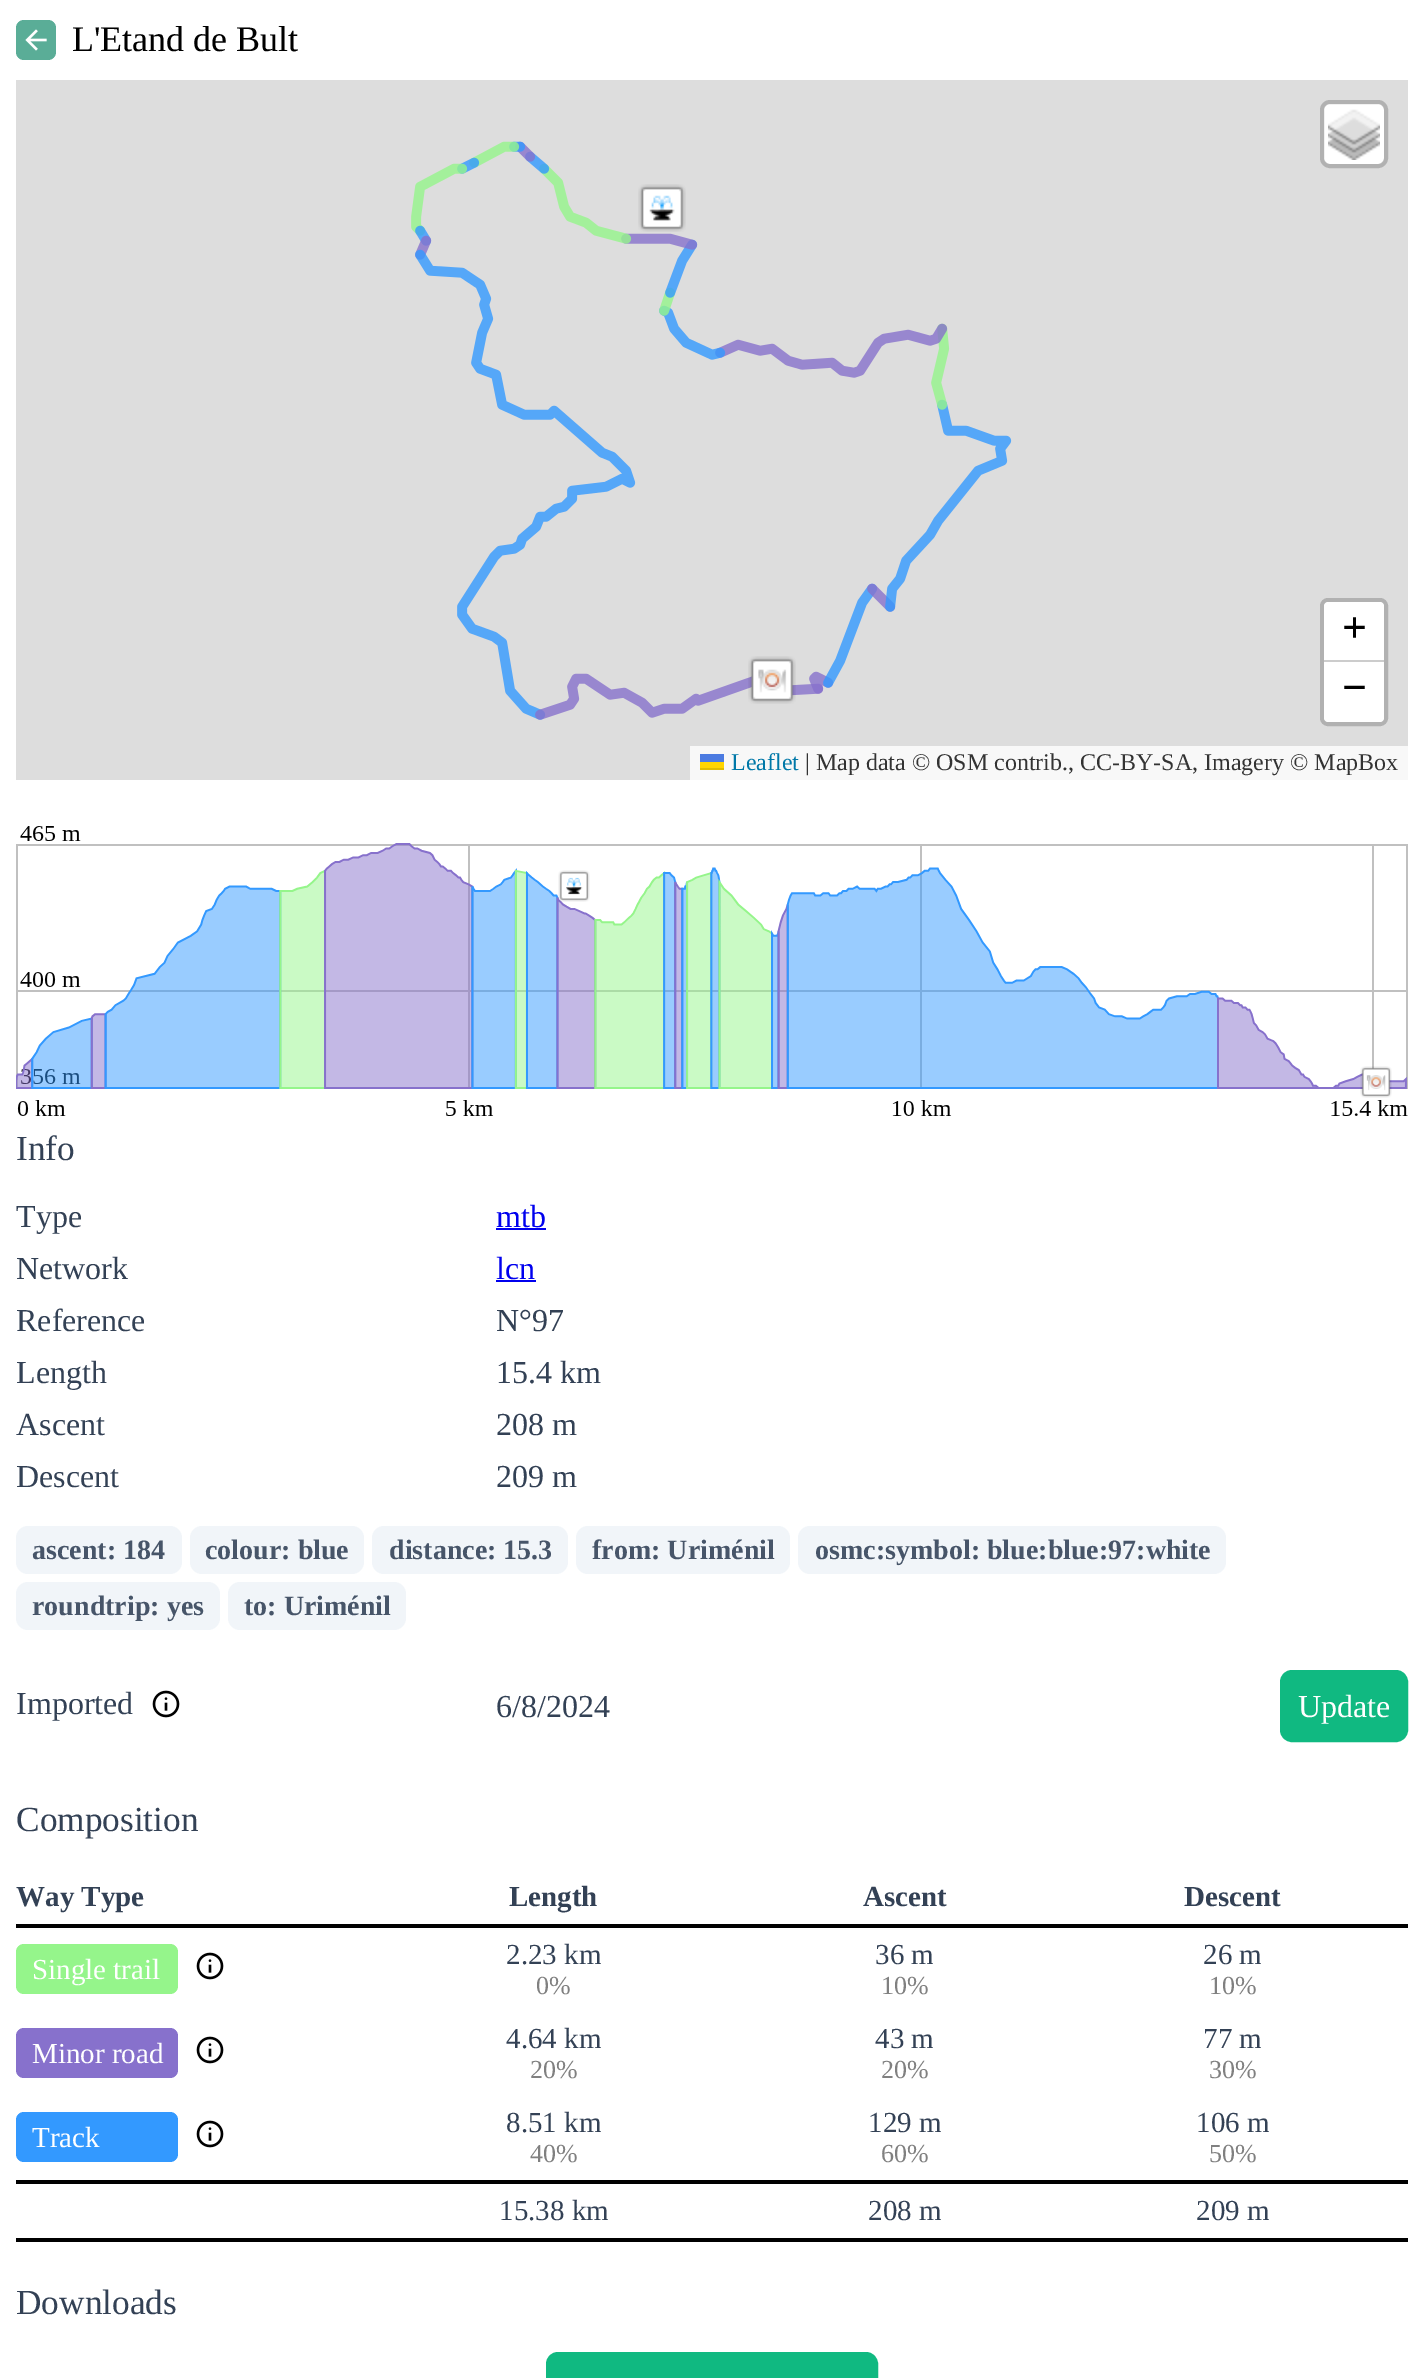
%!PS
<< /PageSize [1424 2378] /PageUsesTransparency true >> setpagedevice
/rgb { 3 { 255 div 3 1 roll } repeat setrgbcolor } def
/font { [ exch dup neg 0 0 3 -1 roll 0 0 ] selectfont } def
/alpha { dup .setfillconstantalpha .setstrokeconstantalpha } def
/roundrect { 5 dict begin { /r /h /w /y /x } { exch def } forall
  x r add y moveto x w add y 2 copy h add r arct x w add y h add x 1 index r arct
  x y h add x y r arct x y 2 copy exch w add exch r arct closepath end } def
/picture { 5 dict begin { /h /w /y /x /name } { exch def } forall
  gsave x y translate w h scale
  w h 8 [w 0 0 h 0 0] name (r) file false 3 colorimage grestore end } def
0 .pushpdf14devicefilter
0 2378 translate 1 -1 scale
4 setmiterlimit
255 255 255 rgb
0 0 1424 2378 rectfill
90 173 151 rgb
16 20 40 40 8 roundrect fill
(img/1.rgb) 25 29 22 22 picture
221 221 221 rgb
16 80 1392 700 rectfill
(img/2.rgb) 411 141 601 579 picture
(img/3.rgb) 638 184 48 48 picture
(img/4.rgb) 748 656 48 48 picture
255 255 255 rgb
1324 104 60 60 6 roundrect fill
0.2 alpha
0 0 0 rgb
4 setlinewidth
1322 102 64 64 8 roundrect stroke
1 alpha
(img/5.rgb) 1328 109 52 51 picture
177 177 177 rgb
1322 600 64 124 6 roundrect stroke
255 255 255 rgb
1328 602 moveto 1380 602 lineto 1382 602 1384 604 1384 606 curveto 1384 662 lineto 1324 662 lineto 1324 606 lineto 1324 604 1326 602 1328 602 curveto closepath fill
204 204 204 rgb
1324 660 60 2 rectfill
255 255 255 rgb
1324 662 moveto 1384 662 lineto 1384 718 lineto 1384 720 1382 722 1380 722 curveto 1328 722 lineto 1326 722 1324 720 1324 718 curveto closepath fill
[
  [690 746 718 34 248 248 248]
  [700 754 24 8 76 123 225]
  [700 762 24 6 255 213 0]
  [700 768 24 2 224 188 0]
] { aload pop rgb rectfill } forall
(img/6.rgb) 16 826 1392 290 picture
0 0 238 rgb
496 1228 50 2 rectfill
496 1280 40 2 rectfill
241 245 249 rgb
16 1526 166 48 12 roundrect fill
190 1526 174 48 12 roundrect fill
372 1526 196 48 12 roundrect fill
576 1526 214 48 12 roundrect fill
798 1526 428 48 12 roundrect fill
16 1582 204 48 12 roundrect fill
228 1582 178 48 12 roundrect fill
(img/7.rgb) 152 1690 28 28 picture
16 185 129 rgb
1281 1671 126 70 11 roundrect gsave fill grestore
2 setlinewidth
stroke
0 0 0 rgb
16 1924 1392 4 rectfill
149 245 139 rgb
16 1944 162 50 8 roundrect fill
(img/7.rgb) 196 1952 28 28 picture
135 113 204 rgb
16 2028 162 50 8 roundrect fill
(img/7.rgb) 196 2036 28 28 picture
51 153 255 rgb
16 2112 162 50 8 roundrect fill
(img/7.rgb) 196 2120 28 28 picture
0 0 0 rgb
16 2180 1392 4 rectfill
16 2238 1392 4 rectfill
16 185 129 rgb
547 2353 330 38 11 roundrect gsave fill grestore
stroke
/LiberationSerif-Regular 36 font
0 0 0 rgb
72 51 moveto (L'Etand de Bult) show
/LiberationSerif-Bold 44 font
1342 642 moveto (+) show
1342 702 moveto (−) show
/LiberationSerif-Regular 24 font
0 120 168 rgb
731 770 moveto (Leaflet) show
51 51 51 rgb
805 770 moveto (| Map data © OSM contrib., CC-BY-SA, Imagery © MapBox) show
/LiberationSerif-Regular 35.25 font
51 65 85 rgb
16 1160 moveto (Info) show
/LiberationSerif-Regular 32 font
16 1227 moveto (Type) show
0 0 238 rgb
496 1227 moveto (mtb) show
51 65 85 rgb
16 1279 moveto (Network) show
0 0 238 rgb
496 1279 moveto (lcn) show
51 65 85 rgb
[
  [(Reference) 16 1331]
  [(N°97) 496 1331]
  [(Length) 16 1383]
  [(15.4 km) 496 1383]
  [(Ascent) 16 1435]
  [(208 m) 496 1435]
  [(Descent) 16 1487]
  [(209 m) 496 1487]
] { aload pop moveto show } forall
/LiberationSerif-Bold 28 font
71 85 105 rgb
[
  [(ascent: 184) 32 1559]
  [(colour: blue) 205 1559]
  [(distance: 15.3) 389 1559]
  [(from: Uriménil) 592 1559]
  [(osmc:symbol: blue:blue:97:white) 815 1559]
  [(roundtrip: yes) 32 1615]
  [(to: Uriménil) 244 1615]
] { aload pop moveto show } forall
/LiberationSerif-Regular 32 font
51 65 85 rgb
16 1714 moveto (Imported) show
496 1717 moveto (6/8/2024) show
255 255 255 rgb
1298 1717 moveto (Update) show
/LiberationSerif-Regular 35.25 font
51 65 85 rgb
16 1831 moveto (Composition) show
/LiberationSerif-Bold 29 font
[
  [(Way Type) 16 1906]
  [(Length) 509 1906]
  [(Ascent) 863 1906]
  [(Descent) 1184 1906]
] { aload pop moveto show } forall
/LiberationSerif-Regular 29 font
255 255 255 rgb
32 1979 moveto (Single trail) show
51 65 85 rgb
506 1964 moveto (2.23 km) show
/LiberationSerif-Regular 26 font
128 128 128 rgb
536 1994 moveto (0%) show
/LiberationSerif-Regular 29 font
51 65 85 rgb
875 1964 moveto (36 m) show
/LiberationSerif-Regular 26 font
128 128 128 rgb
881 1994 moveto (10%) show
/LiberationSerif-Regular 29 font
51 65 85 rgb
1203 1964 moveto (26 m) show
/LiberationSerif-Regular 26 font
128 128 128 rgb
1209 1994 moveto (10%) show
/LiberationSerif-Regular 29 font
255 255 255 rgb
32 2063 moveto (Minor road) show
51 65 85 rgb
506 2048 moveto (4.64 km) show
/LiberationSerif-Regular 26 font
128 128 128 rgb
530 2078 moveto (20%) show
/LiberationSerif-Regular 29 font
51 65 85 rgb
875 2048 moveto (43 m) show
/LiberationSerif-Regular 26 font
128 128 128 rgb
881 2078 moveto (20%) show
/LiberationSerif-Regular 29 font
51 65 85 rgb
1203 2048 moveto (77 m) show
/LiberationSerif-Regular 26 font
128 128 128 rgb
1209 2078 moveto (30%) show
/LiberationSerif-Regular 29 font
255 255 255 rgb
32 2147 moveto (Track) show
51 65 85 rgb
506 2132 moveto (8.51 km) show
/LiberationSerif-Regular 26 font
128 128 128 rgb
530 2162 moveto (40%) show
/LiberationSerif-Regular 29 font
51 65 85 rgb
868 2132 moveto (129 m) show
/LiberationSerif-Regular 26 font
128 128 128 rgb
881 2162 moveto (60%) show
/LiberationSerif-Regular 29 font
51 65 85 rgb
1196 2132 moveto (106 m) show
/LiberationSerif-Regular 26 font
128 128 128 rgb
1209 2162 moveto (50%) show
/LiberationSerif-Regular 29 font
51 65 85 rgb
[
  [(15.38 km) 499 2220]
  [(208 m) 868 2220]
  [(209 m) 1196 2220]
] { aload pop moveto show } forall
/LiberationSerif-Regular 35.25 font
16 2314 moveto (Downloads) show
.poppdf14devicefilter showpage
